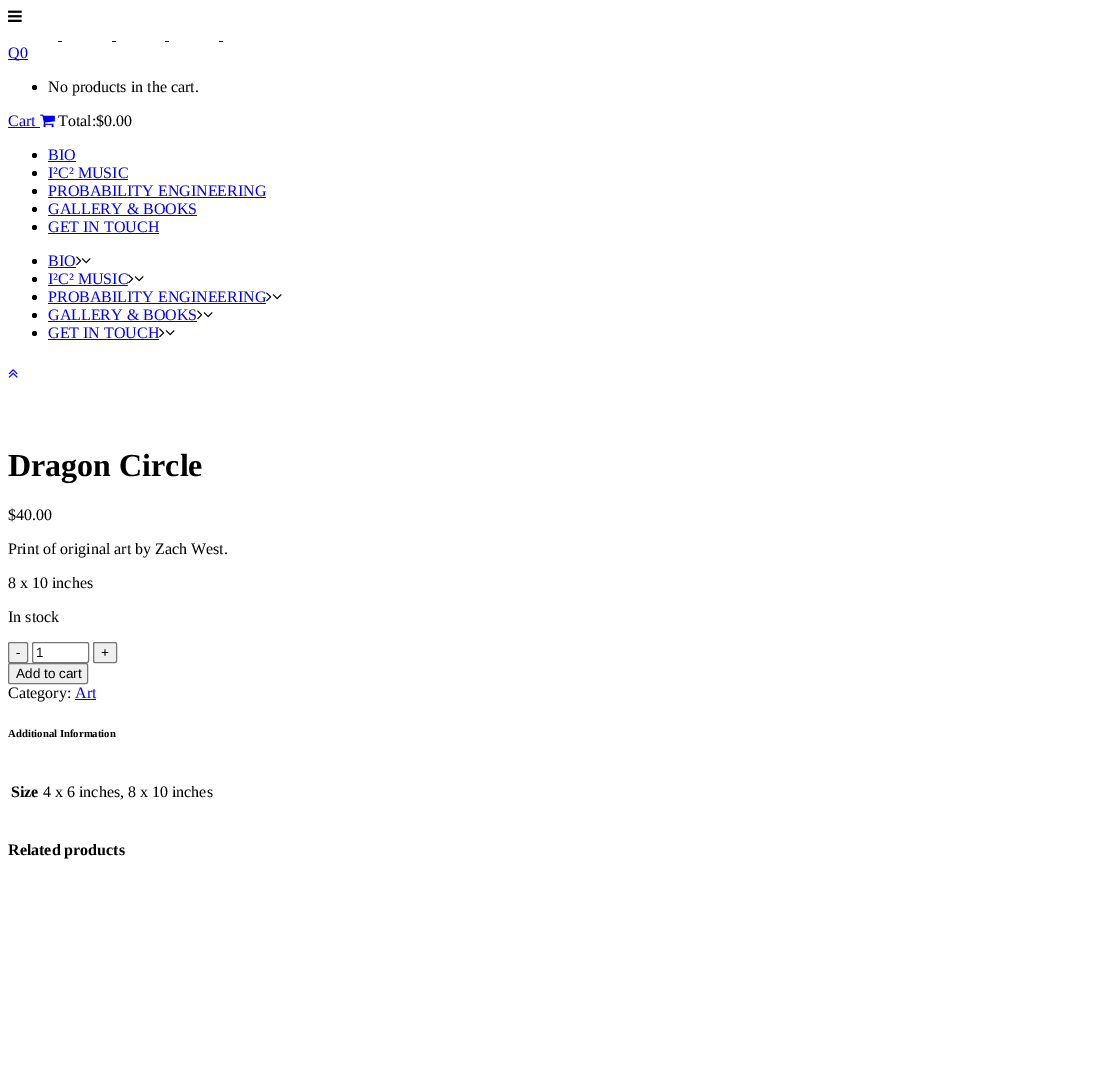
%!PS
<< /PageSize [1104 1084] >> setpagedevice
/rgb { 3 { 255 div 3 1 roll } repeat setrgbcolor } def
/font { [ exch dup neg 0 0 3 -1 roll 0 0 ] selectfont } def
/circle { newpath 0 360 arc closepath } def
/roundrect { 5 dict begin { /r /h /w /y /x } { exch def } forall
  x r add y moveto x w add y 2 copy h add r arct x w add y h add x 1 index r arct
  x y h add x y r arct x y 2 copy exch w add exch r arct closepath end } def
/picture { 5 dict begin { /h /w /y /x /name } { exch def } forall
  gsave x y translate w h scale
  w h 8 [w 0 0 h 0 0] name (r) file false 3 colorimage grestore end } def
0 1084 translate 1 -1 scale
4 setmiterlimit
255 255 255 rgb
0 0 1104 1084 rectfill
(img/1.rgb) 8 10 14 12 picture
[
  [58 41 4 1 0 0 238]
  [112 41 4 1 0 0 238]
  [165 41 4 1 0 0 238]
  [219 41 4 1 0 0 238]
  [8 59 20 1 0 0 238]
] { aload pop rgb rectfill } forall
0 0 0 rgb
34.5 87.5 2.5 circle fill
0 0 238 rgb
8 127 32 1 rectfill
(img/2.rgb) 40 114 15 14 picture
0 0 0 rgb
34.5 155.5 2.5 circle fill
0 0 238 rgb
48 161 28 1 rectfill
0 0 0 rgb
34.5 173.5 2.5 circle fill
0 0 238 rgb
48 179 80 1 rectfill
0 0 0 rgb
34.5 191.5 2.5 circle fill
0 0 238 rgb
48 197 218 1 rectfill
0 0 0 rgb
34.5 209.5 2.5 circle fill
0 0 238 rgb
48 215 149 1 rectfill
0 0 0 rgb
34.5 227.5 2.5 circle fill
0 0 238 rgb
48 233 111 1 rectfill
0 0 0 rgb
34.5 261.5 2.5 circle fill
0 0 238 rgb
48 267 28 1 rectfill
(img/3.rgb) 76 256 6 10 picture
(img/4.rgb) 81 258 10 6 picture
0 0 0 rgb
34.5 279.5 2.5 circle fill
0 0 238 rgb
48 285 80 1 rectfill
(img/3.rgb) 128 274 6 10 picture
(img/5.rgb) 134 276 10 6 picture
0 0 0 rgb
34.5 297.5 2.5 circle fill
0 0 238 rgb
48 303 218 1 rectfill
(img/3.rgb) 266 292 6 10 picture
(img/5.rgb) 272 294 10 6 picture
0 0 0 rgb
34.5 315.5 2.5 circle fill
0 0 238 rgb
48 321 149 1 rectfill
(img/3.rgb) 197 310 6 10 picture
(img/5.rgb) 203 312 10 6 picture
0 0 0 rgb
34.5 333.5 2.5 circle fill
0 0 238 rgb
48 339 111 1 rectfill
(img/3.rgb) 159 328 6 10 picture
(img/5.rgb) 165 330 10 6 picture
(img/6.rgb) 8 369 10 9 picture
239 239 239 rgb
8.5 642.5 19 20 1.5 roundrect gsave fill grestore
118 118 118 rgb
stroke
32.5 642.5 56 20 1.5 roundrect stroke
239 239 239 rgb
93.5 642.5 23 20 1.5 roundrect gsave fill grestore
118 118 118 rgb
stroke
239 239 239 rgb
8.5 663.5 79 20 1.5 roundrect gsave fill grestore
118 118 118 rgb
stroke
0 0 238 rgb
75 699 21 1 rectfill
/LiberationSerif-Regular 16 font
8 58 moveto (Q0) show
0 0 0 rgb
48 92 moveto (No products in the cart.) show
0 0 238 rgb
8 126 moveto (Cart) show
0 0 0 rgb
58 126 moveto (Total:$0.00) show
0 0 238 rgb
[
  [(BIO) 48 160]
  [(I²C² MUSIC) 48 178]
  [(PROBABILITY ENGINEERING) 48 196]
  [(GALLERY & BOOKS) 48 214]
  [(GET IN TOUCH) 48 232]
  [(BIO) 48 266]
  [(I²C² MUSIC) 48 284]
  [(PROBABILITY ENGINEERING) 48 302]
  [(GALLERY & BOOKS) 48 320]
  [(GET IN TOUCH) 48 338]
] { aload pop moveto show } forall
/LiberationSerif-Bold 32 font
0 0 0 rgb
8 476 moveto (Dragon Circle) show
/LiberationSerif-Regular 16 font
[
  [($40.00) 8 520]
  [(Print of original art by Zach West.) 8 554]
  [(8 x 10 inches) 8 588]
  [(In stock) 8 622]
] { aload pop moveto show } forall
/LiberationSans-Regular 13.5 font
[
  [(-) 16 657]
  [(1) 36 657]
  [(+) 101 657]
  [(Add to cart) 16 678]
] { aload pop moveto show } forall
/LiberationSerif-Regular 16 font
8 698 moveto (Category:) show
0 0 238 rgb
75 698 moveto (Art) show
/LiberationSerif-Bold 10.75 font
0 0 0 rgb
8 737 moveto (Additional Information) show
/LiberationSerif-Bold 16 font
11 797 moveto (Size) show
/LiberationSerif-Regular 16 font
43 797 moveto (4 x 6 inches, 8 x 10 inches) show
/LiberationSerif-Bold 16 font
8 855 moveto (Related products) show
showpage
